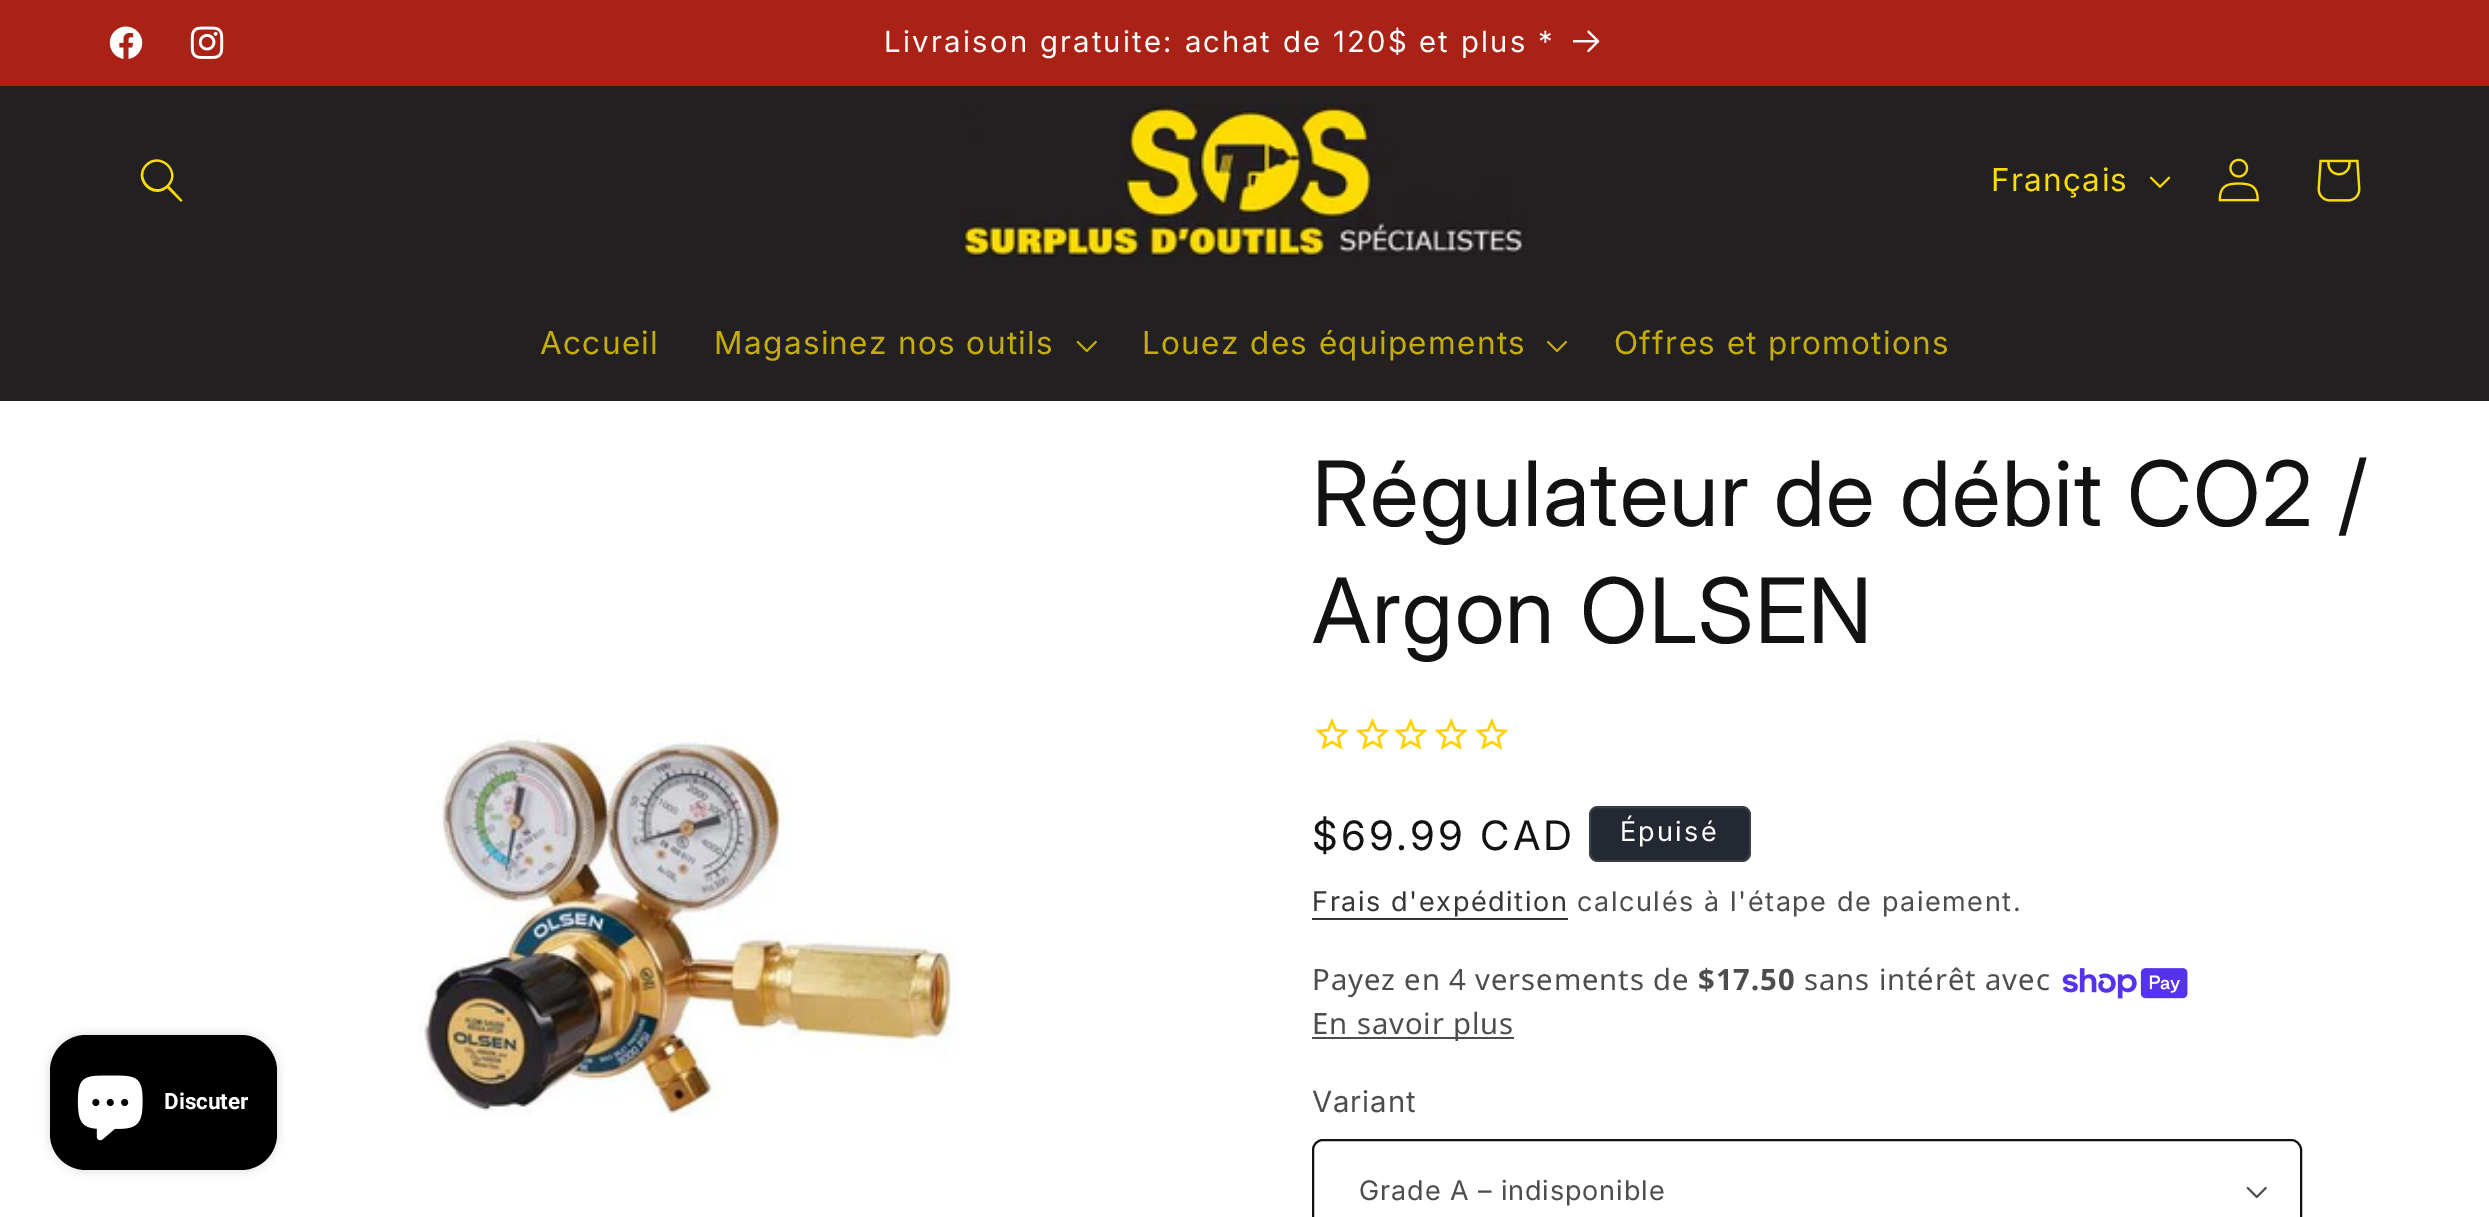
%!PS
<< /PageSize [2489 1217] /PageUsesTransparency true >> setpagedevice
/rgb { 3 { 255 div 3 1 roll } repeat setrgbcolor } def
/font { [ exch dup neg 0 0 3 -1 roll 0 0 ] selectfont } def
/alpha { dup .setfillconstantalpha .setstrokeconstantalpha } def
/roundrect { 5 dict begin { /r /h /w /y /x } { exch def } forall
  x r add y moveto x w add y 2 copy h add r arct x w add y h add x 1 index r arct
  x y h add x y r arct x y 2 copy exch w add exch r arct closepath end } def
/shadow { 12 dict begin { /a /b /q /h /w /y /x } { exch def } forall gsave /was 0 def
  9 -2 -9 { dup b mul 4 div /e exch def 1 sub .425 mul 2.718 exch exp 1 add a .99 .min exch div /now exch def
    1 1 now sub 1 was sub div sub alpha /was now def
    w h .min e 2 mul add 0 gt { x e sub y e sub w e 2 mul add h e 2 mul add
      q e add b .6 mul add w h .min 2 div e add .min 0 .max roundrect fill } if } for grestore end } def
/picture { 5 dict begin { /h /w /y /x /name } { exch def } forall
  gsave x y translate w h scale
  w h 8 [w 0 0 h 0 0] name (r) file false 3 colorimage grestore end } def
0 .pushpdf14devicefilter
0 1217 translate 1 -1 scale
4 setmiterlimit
255 255 255 rgb
0 0 2489 1217 rectfill
170 34 22 rgb
0 0 2489 86 rectfill
(img/1.rgb) 109 26 34 33 picture
(img/2.rgb) 190 26 34 33 picture
(img/3.rgb) 1573 30 27 23 picture
34 32 32 rgb
0 86 2489 315 rectfill
250 218 7 rgb
167 185 moveto 154 198 135 178 147 166 curveto 160 153 180 172 167 185 curveto 167 188 moveto 152 201 131 178 146 164 curveto 160 150 183 171 169 186 curveto 182 200 lineto 183 201 181 202 180 201 curveto closepath eofill
(img/4.rgb) 959 103 568 154 picture
(img/5.rgb) 2149 176 22 12 picture
(img/6.rgb) 2218 158 41 44 picture
(img/7.rgb) 2317 159 44 43 picture
(img/8.rgb) 1076 340 21 13 picture
(img/9.rgb) 1546 340 22 13 picture
0 0 0 rgb
50 1035 227 135 36 5.5 0.15 shadow
50 1035 227 135 36 roundrect fill
(img/10.rgb) 77 1075 66 66 picture
(img/11.rgb) 419 734 537 382 picture
(img/12.rgb) 1315 718 34 32 picture
(img/13.rgb) 1355 717 35 33 picture
(img/14.rgb) 1394 717 34 33 picture
(img/15.rgb) 1434 717 34 33 picture
(img/14.rgb) 1475 717 34 33 picture
36 40 51 rgb
1589 806 162 56 9 roundrect fill
0.1 alpha
255 255 255 rgb
2 setlinewidth
1590 807 160 54 8 roundrect stroke
1 alpha
54 54 54 rgb
1312 918 256 2 rectfill
(img/16.rgb) 2062 968 126 31 picture
77 77 77 rgb
1312 1037 202 2 rectfill
(img/17.rgb) 2246 1186 21 13 picture
18 18 18 rgb
1313 1140 988 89 10 roundrect stroke
/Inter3-Regular 29.25 font
255 255 255 rgb
884 52 moveto 2.25 0 (Livraison gratuite: achat de 120$ et plus *) ashow
/Inter3-Regular 31.5 font
250 218 7 rgb
1991 191 moveto 1.35 0 (Français) ashow
196 172 13 rgb
540 354 moveto 1.35 0 (Accueil) ashow
714 354 moveto 1.35 0 (Magasinez nos outils) ashow
1142 354 moveto 1.35 0 (Louez des équipements) ashow
1614 354 moveto 1.35 0 (Offres et promotions) ashow
/Roboto-Bold 22.5 font
255 255 255 rgb
164 1109 moveto (Discuter) show
/Inter-Regular 90 font
18 18 18 rgb
1312 526 moveto 1.35 0 (Régulateur de débit CO2 /) ashow
1312 643 moveto 1.35 0 (Argon OLSEN) ashow
/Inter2-Regular 40.5 font
1312 850 moveto 3 0 ($69.99 CAD) ashow
/Inter3-Regular 27 font
255 255 255 rgb
1620 841 moveto 2.25 0 (Épuisé) ashow
54 54 54 rgb
1312 911 moveto 1.6 0 (Frais d'expédition) ashow
77 77 77 rgb
1577 911 moveto 1.6 0 (calculés à l'étape de paiement.) ashow
/NotoSans-Regular 29.25 font
1312 990 moveto 0.9 0 (Payez en 4 versements de) ashow
/NotoSans-Bold 29.25 font
1698 990 moveto 0.9 0 ($17.50) ashow
/NotoSans-Regular 29.25 font
1804 990 moveto 0.9 0 (sans intérêt avec) ashow
1312 1034 moveto 0.9 0 (En savoir plus) ashow
/Inter3-Regular 29.25 font
1312 1112 moveto 0.9 0 (Variant) ashow
/Inter3-Regular 27 font
1359 1200 moveto 0.9 0 (Grade A – indisponible) ashow
.poppdf14devicefilter showpage
